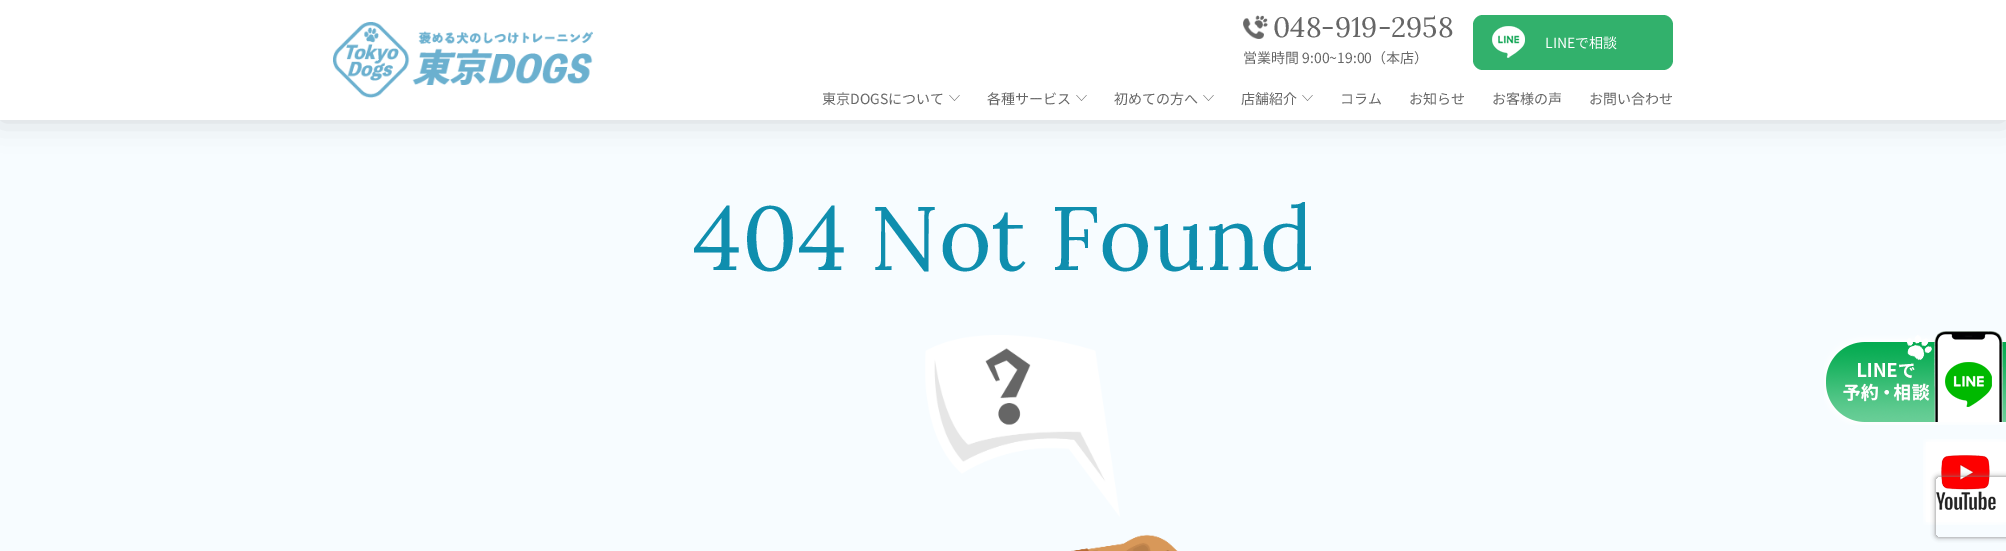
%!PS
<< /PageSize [2006 551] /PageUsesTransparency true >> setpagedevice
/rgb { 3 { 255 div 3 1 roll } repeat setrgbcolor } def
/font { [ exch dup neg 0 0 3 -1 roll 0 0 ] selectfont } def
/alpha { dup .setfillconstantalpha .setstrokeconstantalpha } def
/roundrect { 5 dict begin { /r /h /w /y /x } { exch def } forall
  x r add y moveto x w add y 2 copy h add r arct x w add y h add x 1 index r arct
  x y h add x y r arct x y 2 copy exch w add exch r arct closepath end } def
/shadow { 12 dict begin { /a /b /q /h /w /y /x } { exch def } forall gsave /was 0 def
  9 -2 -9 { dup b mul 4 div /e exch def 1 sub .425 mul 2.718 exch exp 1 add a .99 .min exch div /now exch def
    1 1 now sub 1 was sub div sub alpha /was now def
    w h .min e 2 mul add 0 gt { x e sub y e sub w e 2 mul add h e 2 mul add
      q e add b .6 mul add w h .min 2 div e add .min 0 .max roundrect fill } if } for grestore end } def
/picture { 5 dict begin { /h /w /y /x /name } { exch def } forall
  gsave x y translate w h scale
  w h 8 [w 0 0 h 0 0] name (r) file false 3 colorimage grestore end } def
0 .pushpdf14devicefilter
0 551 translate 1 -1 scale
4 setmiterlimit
247 252 255 rgb
0 0 2006 551 rectfill
0 0 0 rgb
0 0 2006 120 0 15 0.15 shadow
255 255 255 rgb
0 0 2006 120 rectfill
(img/1.rgb) 333 22 260 76 picture
(img/2.rgb) 1243 15 25 24 picture
50 177 108 rgb
1473 15 200 55 10 roundrect fill
(img/3.rgb) 1492 26 33 32 picture
(img/4.rgb) 949 95 11 6 picture
(img/4.rgb) 1076 95 11 6 picture
(img/4.rgb) 1203 95 11 6 picture
(img/4.rgb) 1302 95 11 6 picture
(img/5.rgb) 925 335 253 216 picture
(img/6.rgb) 1824 331 182 94 picture
(img/7.rgb) 1923 439 83 86 picture
gsave
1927 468 moveto 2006 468 lineto 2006 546 lineto 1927 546 lineto closepath 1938 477 moveto 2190 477 lineto 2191 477 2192 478 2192 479 curveto 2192 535 lineto 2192 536 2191 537 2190 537 curveto 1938 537 lineto 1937 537 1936 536 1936 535 curveto 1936 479 lineto 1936 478 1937 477 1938 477 curveto closepath eoclip newpath
128 128 128 rgb
1936 477 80 60 2 2.5 1 shadow
grestore
/Lora-Regular 28 font
102 102 102 rgb
1273 37 moveto (048-919-2958) show
/NotoSansJP-Regular 14 font
1243 63 moveto (営業時間 9:00~19:00（本店）) show
255 255 255 rgb
1545 48 moveto (LINEで相談) show
102 102 102 rgb
[
  [(東京DOGSについて) 822 104]
  [(各種サービス) 987 104]
  [(初めての方へ) 1114 104]
  [(店舗紹介) 1241 104]
  [(コラム) 1340 104]
  [(お知らせ) 1409 104]
  [(お客様の声) 1492 104]
  [(お問い合わせ) 1589 104]
] { aload pop moveto show } forall
/Lora-Regular 90 font
15 142 174 rgb
693 270 moveto (404 Not Found) show
.poppdf14devicefilter showpage
